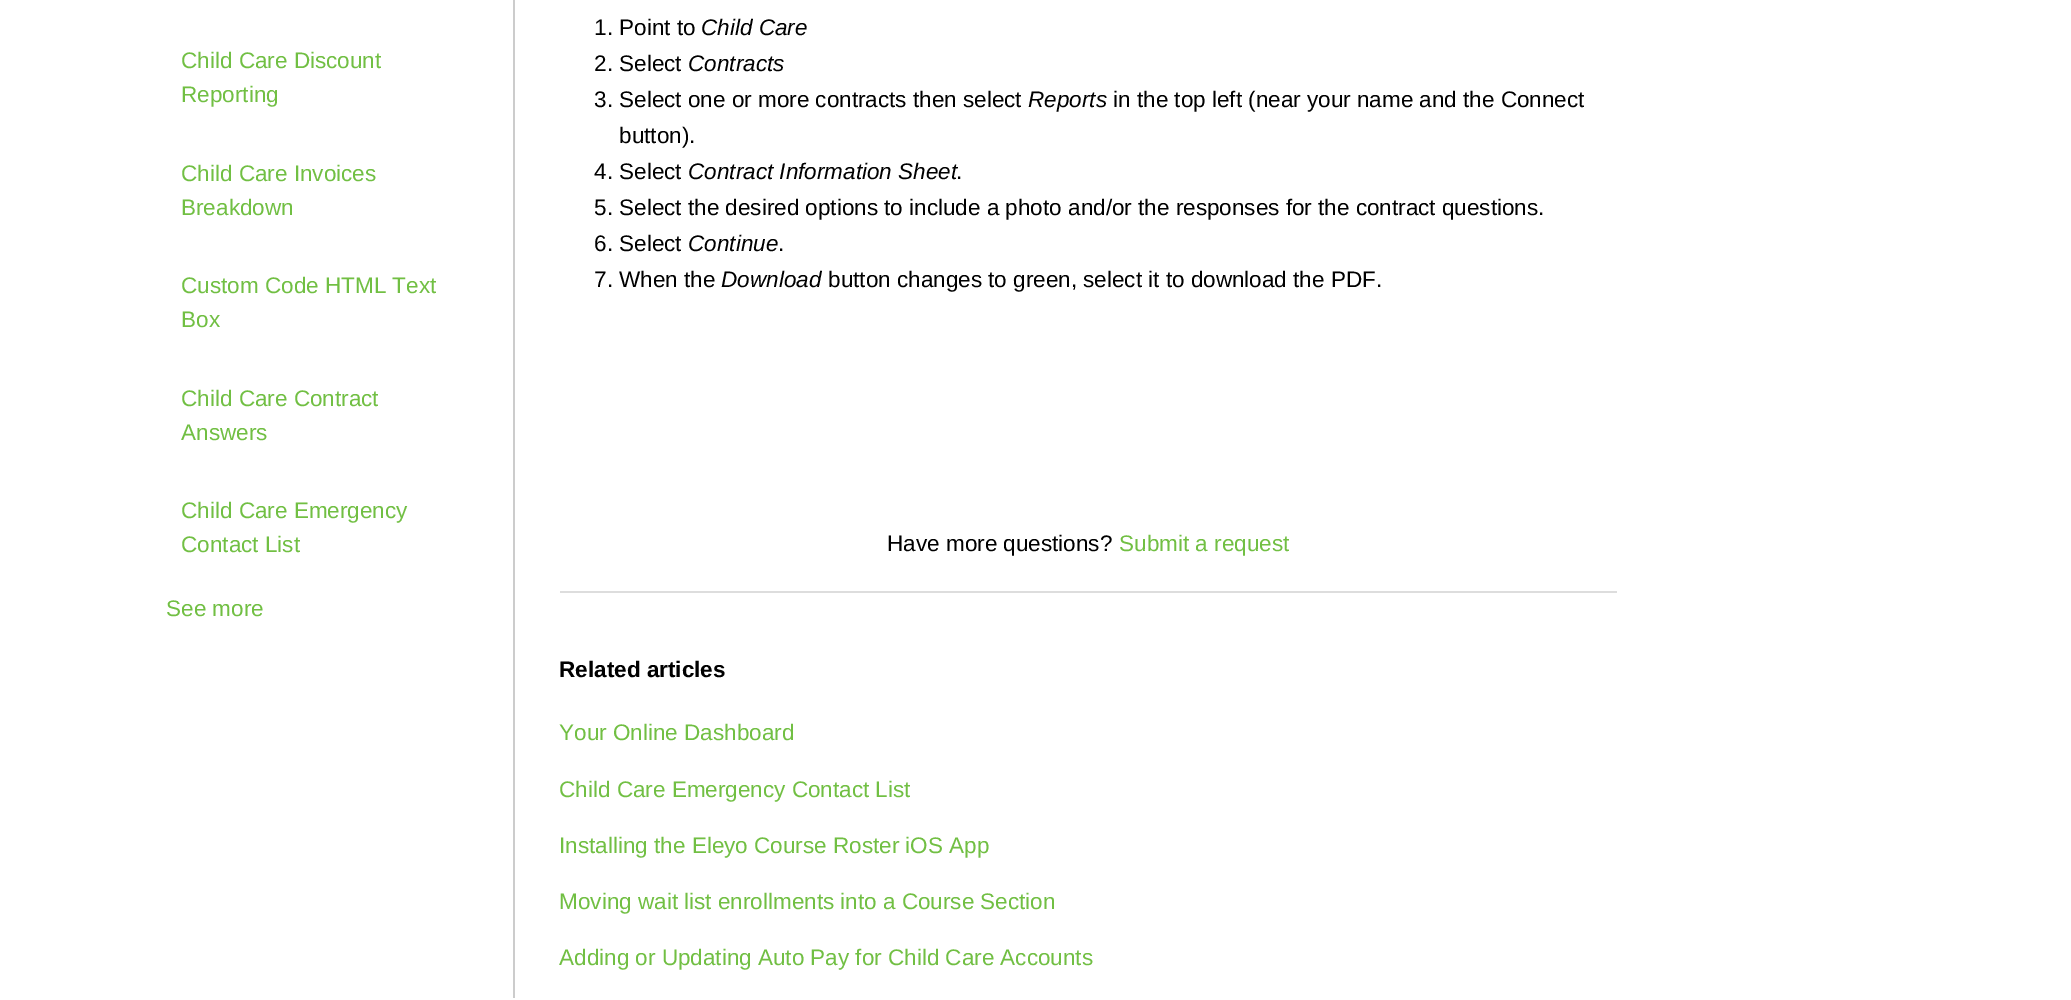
%!PS
<< /PageSize [2071 1000] >> setpagedevice
/rgb { 3 { 255 div 3 1 roll } repeat setrgbcolor } def
/font { [ exch dup neg 0 0 3 -1 roll 0 0 ] selectfont } def
0 1000 translate 1 -1 scale
4 setmiterlimit
255 255 255 rgb
0 0 2071 1000 rectfill
204 204 204 rgb
513 0 2 998 rectfill
221 221 221 rgb
560 591 1057 2 rectfill
/LiberationSans-Regular 22.5 font
113 191 67 rgb
[
  [(Child Care Discount) 181 68]
  [(Reporting) 181 102]
  [(Child Care Invoices) 181 181]
  [(Breakdown) 181 215]
  [(Custom Code HTML Text) 181 293]
  [(Box) 181 327]
  [(Child Care Contract) 181 406]
  [(Answers) 181 440]
  [(Child Care Emergency) 181 518]
  [(Contact List) 181 552]
  [(See more) 166 616]
] { aload pop moveto show } forall
0 0 0 rgb
594 35 moveto (1. Point to) show
/LiberationSans-Italic 22.5 font
701 35 moveto (Child Care) show
/LiberationSans-Regular 22.5 font
594 71 moveto (2. Select) show
/LiberationSans-Italic 22.5 font
688 71 moveto (Contracts) show
/LiberationSans-Regular 22.5 font
594 107 moveto (3. Select one or more contracts then select) show
/LiberationSans-Italic 22.5 font
1028 107 moveto (Reports) show
/LiberationSans-Regular 22.5 font
[
  [(in the top left \(near your name and the Connect) 1113 107]
  [(button\).) 619 143]
  [(4. Select) 594 179]
] { aload pop moveto show } forall
/LiberationSans-Italic 22.5 font
688 179 moveto (Contract Information Sheet) show
/LiberationSans-Regular 22.5 font
[
  [(.) 956 179]
  [(5. Select the desired options to include a photo and/or the responses for the contract questions.) 594 215]
  [(6. Select) 594 251]
] { aload pop moveto show } forall
/LiberationSans-Italic 22.5 font
688 251 moveto (Continue) show
/LiberationSans-Regular 22.5 font
778 251 moveto (.) show
594 287 moveto (7. When the) show
/LiberationSans-Italic 22.5 font
721 287 moveto (Download) show
/LiberationSans-Regular 22.5 font
828 287 moveto (button changes to green, select it to download the PDF.) show
887 551 moveto (Have more questions?) show
113 191 67 rgb
1119 551 moveto (Submit a request) show
/LiberationSans-Bold 22.5 font
0 0 0 rgb
559 677 moveto (Related articles) show
/LiberationSans-Regular 22.5 font
113 191 67 rgb
[
  [(Your Online Dashboard) 559 740]
  [(Child Care Emergency Contact List) 559 797]
  [(Installing the Eleyo Course Roster iOS App) 559 853]
  [(Moving wait list enrollments into a Course Section) 559 909]
  [(Adding or Updating Auto Pay for Child Care Accounts) 559 965]
] { aload pop moveto show } forall
showpage
